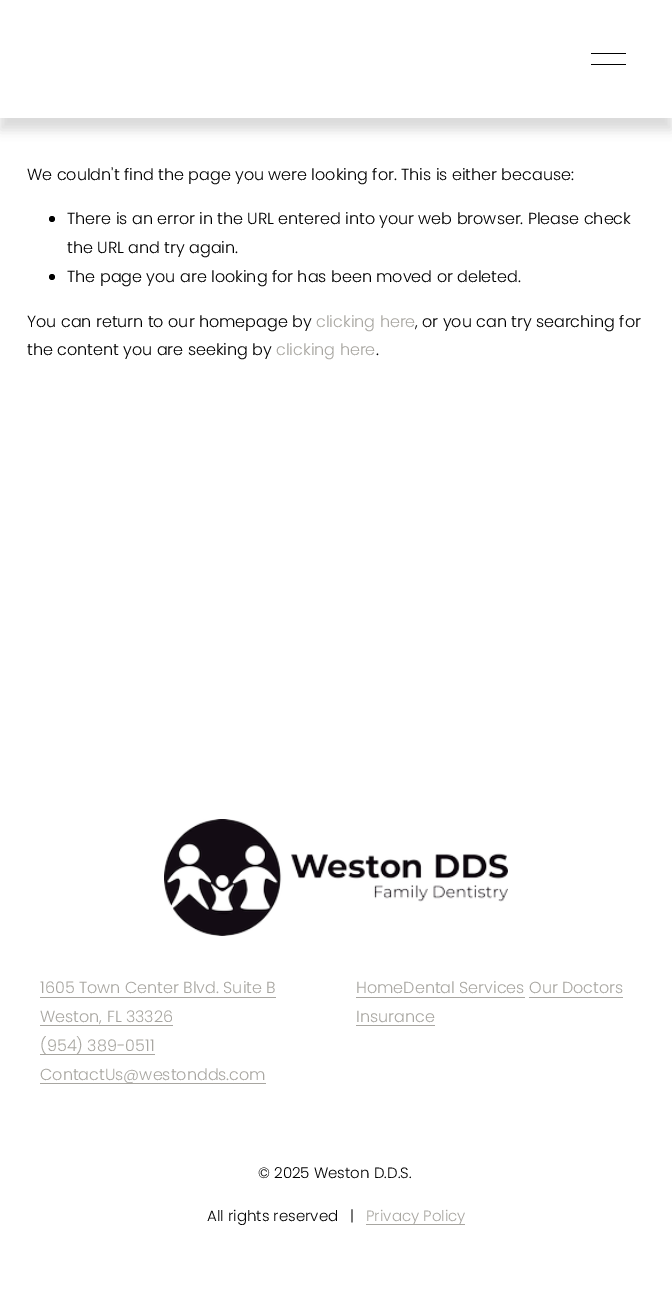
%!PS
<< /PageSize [672 1289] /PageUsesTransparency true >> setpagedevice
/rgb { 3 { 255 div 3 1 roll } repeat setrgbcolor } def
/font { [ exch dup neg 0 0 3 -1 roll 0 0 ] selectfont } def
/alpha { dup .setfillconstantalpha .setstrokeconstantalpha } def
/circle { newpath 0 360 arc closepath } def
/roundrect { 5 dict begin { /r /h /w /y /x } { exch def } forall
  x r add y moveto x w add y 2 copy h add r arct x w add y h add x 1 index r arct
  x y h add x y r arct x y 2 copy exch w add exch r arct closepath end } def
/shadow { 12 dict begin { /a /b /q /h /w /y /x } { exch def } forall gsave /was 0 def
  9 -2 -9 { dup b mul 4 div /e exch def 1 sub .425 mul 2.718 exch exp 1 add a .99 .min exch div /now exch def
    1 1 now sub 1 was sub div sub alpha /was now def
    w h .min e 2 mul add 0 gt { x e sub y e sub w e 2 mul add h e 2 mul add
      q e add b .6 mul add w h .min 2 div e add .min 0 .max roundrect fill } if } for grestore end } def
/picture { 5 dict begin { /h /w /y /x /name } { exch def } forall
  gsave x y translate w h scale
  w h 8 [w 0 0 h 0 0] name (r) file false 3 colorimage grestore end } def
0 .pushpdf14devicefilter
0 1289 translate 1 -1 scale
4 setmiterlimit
255 255 255 rgb
0 0 672 1289 rectfill
gsave
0 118 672 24 rectclip
217 217 217 rgb
0 12 672 118 0 6 1 shadow
grestore
0 0 0 rgb
591 53 35 1 rectfill
591 64 35 1 rectfill
52 219 3 circle fill
52 277 3 circle fill
(img/1.rgb) 164 819 344 117 picture
[
  [40 997 236 1 168 166 161]
  [40 1025 133 1 168 166 161]
  [40 1054 115 1 168 166 161]
  [40 1083 226 1 168 166 161]
  [356 997 169 1 168 166 161]
  [529 997 94 1 168 166 161]
  [356 1025 79 1 168 166 161]
  [366 1224 99 1 168 166 161]
] { aload pop rgb rectfill } forall
/Poppins-Light 16 font
0 0 0 rgb
[
  [(We couldn't find the page you were looking for. This is either because:) 27 180]
  [(There is an error in the URL entered into your web browser. Please check) 67 224]
  [(the URL and try again.) 67 253]
  [(The page you are looking for has been moved or deleted.) 67 282]
  [(You can return to our homepage by) 27 327]
] { aload pop moveto show } forall
168 166 161 rgb
316 327 moveto (clicking here) show
0 0 0 rgb
415 327 moveto (, or you can try searching for) show
27 355 moveto (the content you are seeking by) show
168 166 161 rgb
276 355 moveto (clicking here) show
0 0 0 rgb
376 355 moveto (.) show
168 166 161 rgb
[
  [(1605 Town Center Blvd. Suite B) 40 993]
  [(Weston, FL 33326) 40 1022]
  [(\(954\) 389-0511) 40 1051]
  [(ContactUs@westondds.com) 40 1080]
  [(HomeDental Services Our Doctors) 356 993]
  [(Insurance) 356 1022]
] { aload pop moveto show } forall
/Poppins-Light 15 font
0 0 0 rgb
258 1178 moveto (© 2025 Weston D.D.S.) show
207 1221 moveto (All rights reserved   |) show
168 166 161 rgb
366 1221 moveto (Privacy Policy) show
.poppdf14devicefilter showpage
